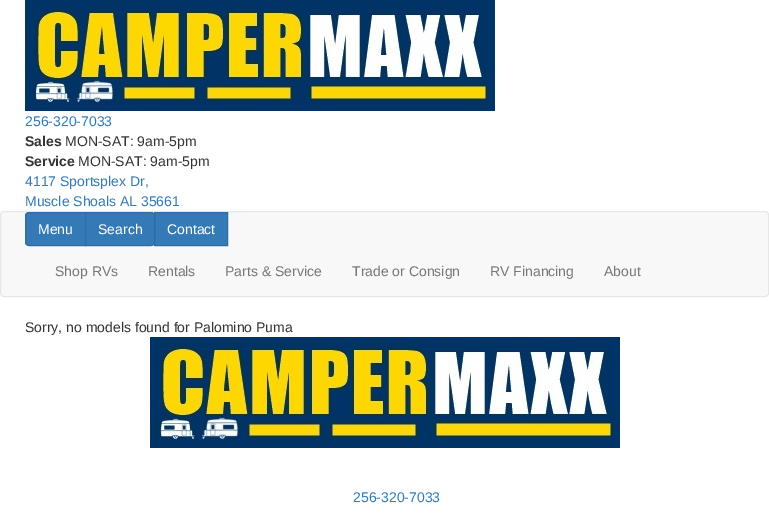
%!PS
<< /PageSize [769 513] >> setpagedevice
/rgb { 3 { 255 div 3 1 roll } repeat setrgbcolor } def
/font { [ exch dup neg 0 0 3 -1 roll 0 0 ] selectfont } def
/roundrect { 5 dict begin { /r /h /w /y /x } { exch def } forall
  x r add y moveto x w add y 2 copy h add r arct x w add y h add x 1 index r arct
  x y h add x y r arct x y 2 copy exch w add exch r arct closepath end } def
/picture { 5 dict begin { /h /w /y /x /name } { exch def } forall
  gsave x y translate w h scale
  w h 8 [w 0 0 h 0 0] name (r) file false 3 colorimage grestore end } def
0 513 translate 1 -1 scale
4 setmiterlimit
255 255 255 rgb
0 0 769 513 rectfill
(img/1.rgb) 25 0 470 111 picture
248 248 248 rgb
0.5 211.5 768 85 3.5 roundrect gsave fill grestore
231 231 231 rgb
stroke
51 122 183 rgb
29 212.5 moveto 85.5 212.5 lineto 85.5 245.5 lineto 29 245.5 lineto 27 245.5 25.5 244 25.5 242 curveto 25.5 216 lineto 25.5 214 27 212.5 29 212.5 curveto closepath gsave fill grestore
46 109 164 rgb
stroke
51 122 183 rgb
154.5 212.5 moveto 227.5 212.5 lineto 227.5 245.5 lineto 154.5 245.5 lineto closepath gsave fill grestore
46 109 164 rgb
stroke
51 122 183 rgb
85.5 212.5 moveto 151 212.5 lineto 153 212.5 154.5 214 154.5 216 curveto 154.5 242 lineto 154.5 244 153 245.5 151 245.5 curveto 85.5 245.5 lineto closepath gsave fill grestore
46 109 164 rgb
stroke
(img/1.rgb) 150 337 470 111 picture
/LiberationSans-Regular 14 font
51 122 183 rgb
25 126 moveto (256-320-7033) show
/LiberationSans-Bold 14 font
51 51 51 rgb
25 146 moveto (Sales) show
/LiberationSans-Regular 14 font
65 146 moveto (MON-SAT: 9am-5pm) show
/LiberationSans-Bold 14 font
25 166 moveto (Service) show
/LiberationSans-Regular 14 font
78 166 moveto (MON-SAT: 9am-5pm) show
51 122 183 rgb
25 186 moveto (4117 Sportsplex Dr,) show
25 206 moveto (Muscle Shoals AL 35661) show
255 255 255 rgb
[
  [(Menu) 38 234]
  [(Search) 98 234]
  [(Contact) 167 234]
] { aload pop moveto show } forall
119 119 119 rgb
[
  [(Shop RVs) 55 276]
  [(Rentals) 148 276]
  [(Parts & Service) 225 276]
  [(Trade or Consign) 352 276]
  [(RV Financing) 490 276]
  [(About) 604 276]
] { aload pop moveto show } forall
51 51 51 rgb
25 332 moveto (Sorry, no models found for Palomino Puma) show
51 122 183 rgb
353 502 moveto (256-320-7033) show
showpage
